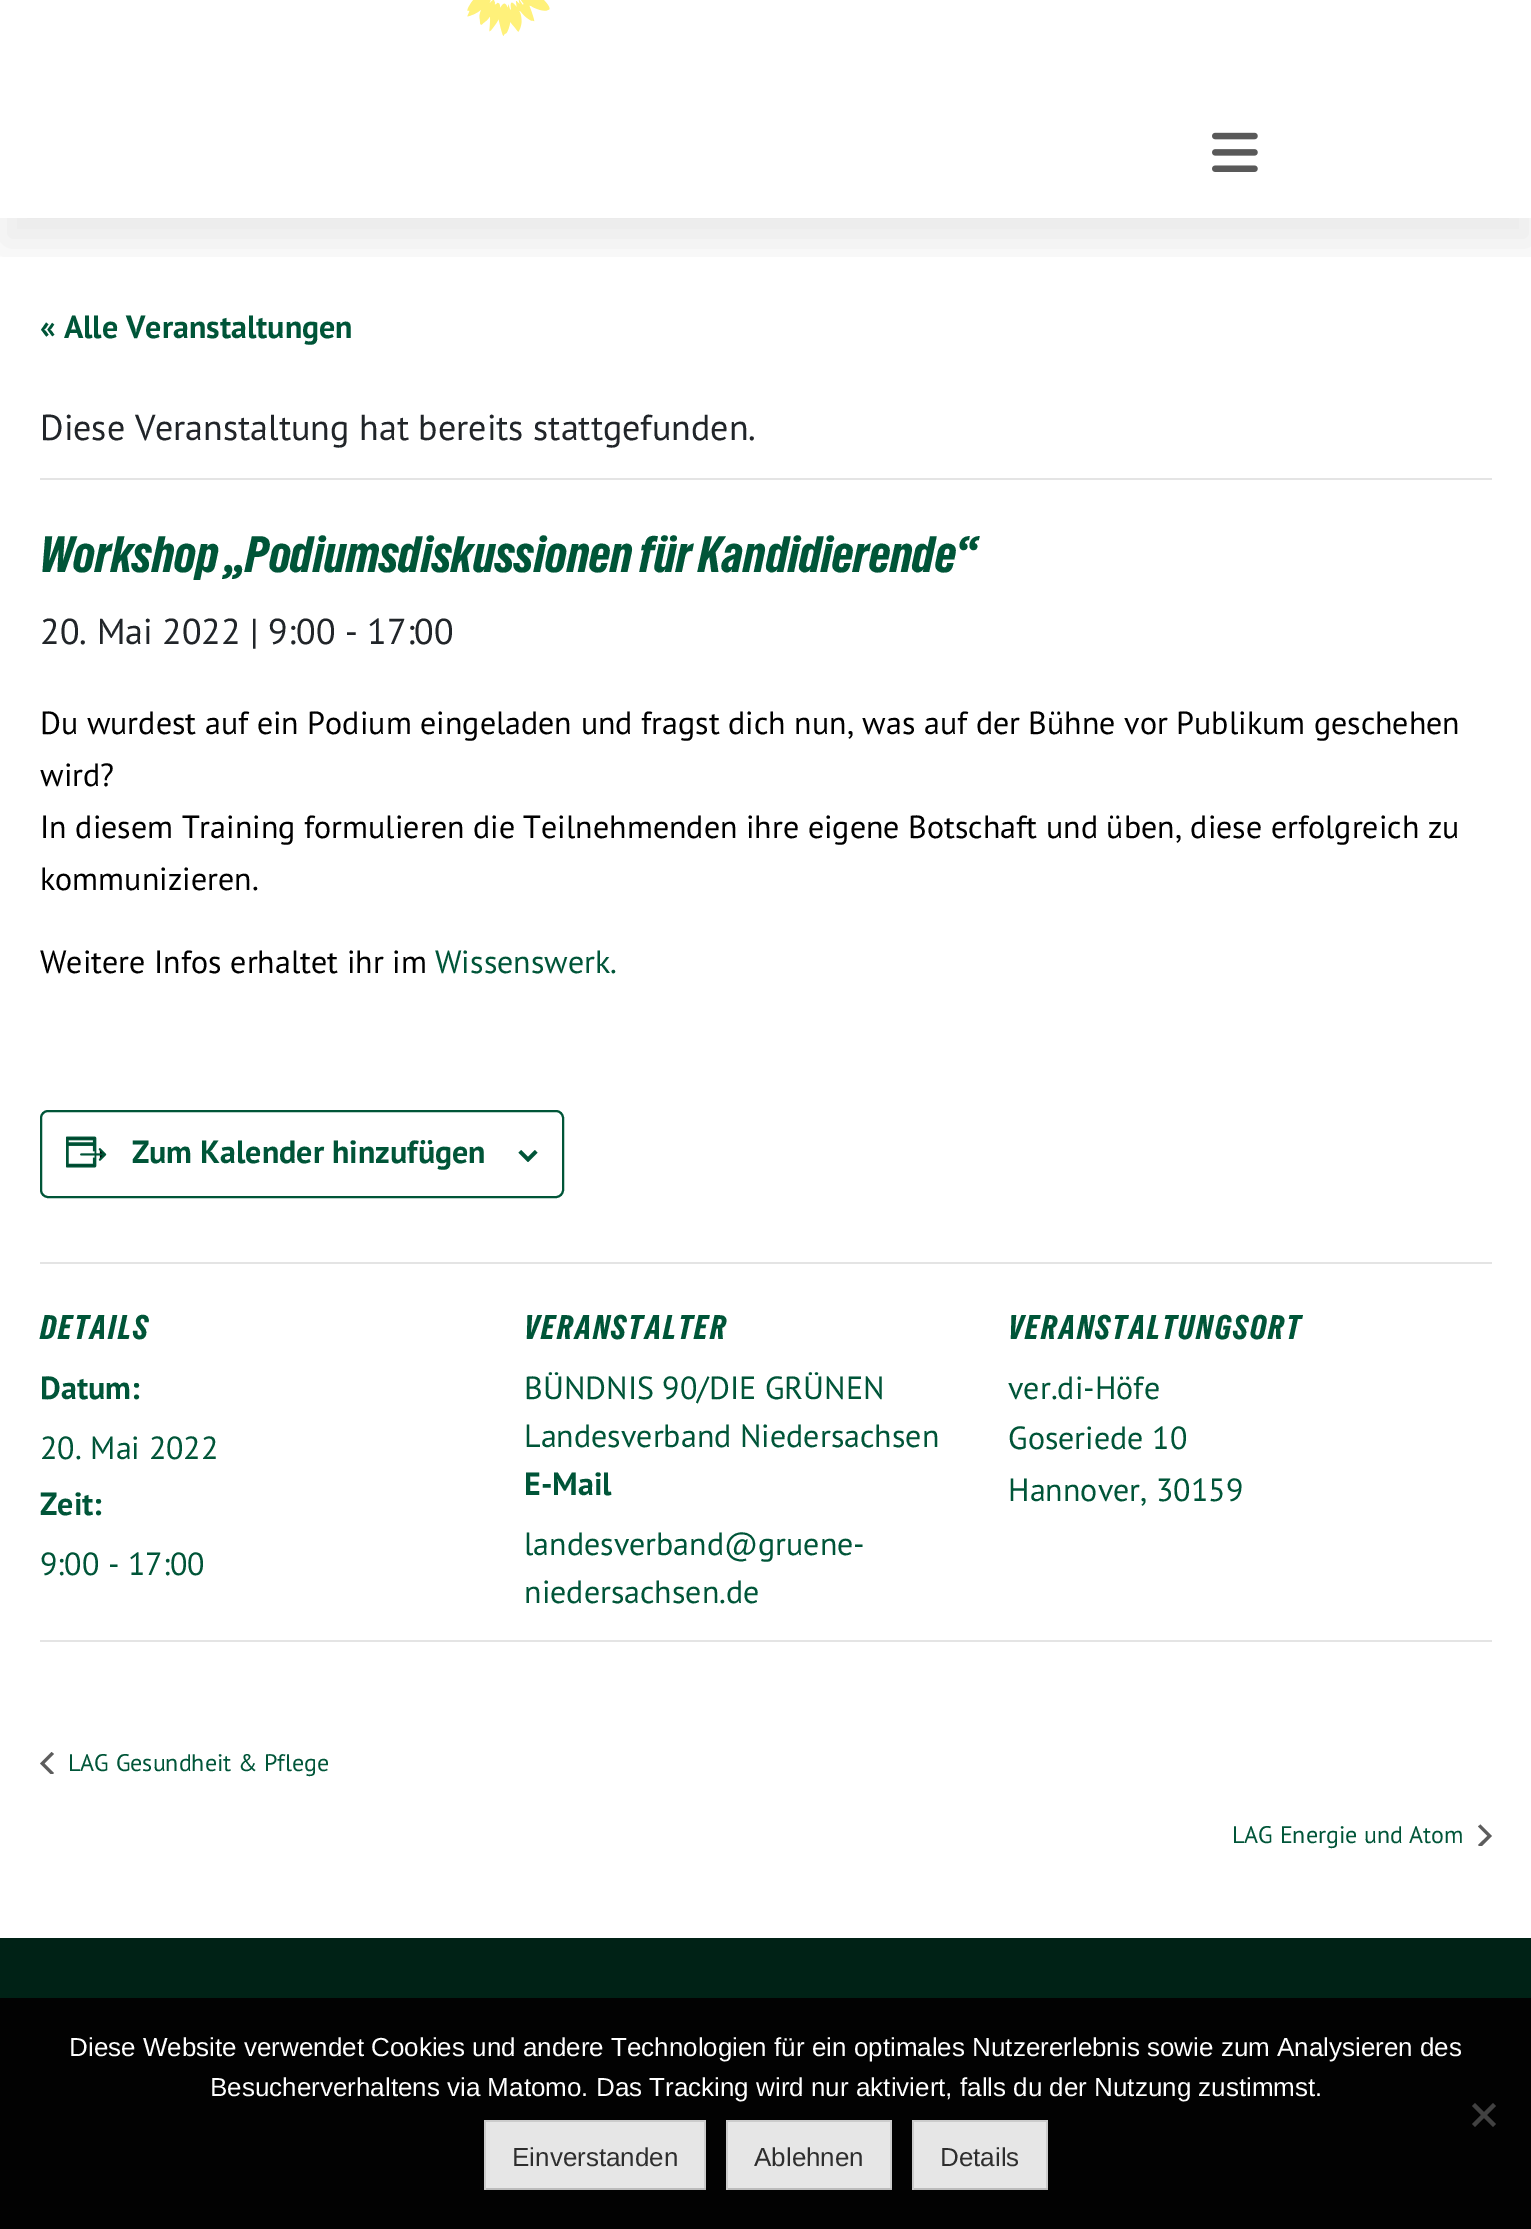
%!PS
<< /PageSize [1531 2229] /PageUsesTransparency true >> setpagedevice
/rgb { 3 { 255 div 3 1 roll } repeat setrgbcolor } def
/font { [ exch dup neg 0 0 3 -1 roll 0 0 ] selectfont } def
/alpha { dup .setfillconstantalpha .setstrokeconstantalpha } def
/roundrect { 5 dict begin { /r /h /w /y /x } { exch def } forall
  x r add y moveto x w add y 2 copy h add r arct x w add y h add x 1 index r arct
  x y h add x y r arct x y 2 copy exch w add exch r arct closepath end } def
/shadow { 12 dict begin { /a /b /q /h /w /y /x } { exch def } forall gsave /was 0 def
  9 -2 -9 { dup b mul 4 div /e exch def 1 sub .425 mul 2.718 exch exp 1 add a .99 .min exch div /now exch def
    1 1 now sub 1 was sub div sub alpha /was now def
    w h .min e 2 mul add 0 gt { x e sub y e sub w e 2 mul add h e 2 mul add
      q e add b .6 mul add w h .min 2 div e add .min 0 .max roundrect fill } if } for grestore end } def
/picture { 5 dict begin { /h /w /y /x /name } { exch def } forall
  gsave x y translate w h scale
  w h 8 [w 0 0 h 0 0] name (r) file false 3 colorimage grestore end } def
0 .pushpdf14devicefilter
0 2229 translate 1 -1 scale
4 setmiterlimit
255 255 255 rgb
0 0 1531 2229 rectfill
(img/1.rgb) 467 0 83 36 picture
gsave
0 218 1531 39 rectclip
0 0 0 rgb
2 116 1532 128 0 20 0.08 shadow
grestore
(img/2.rgb) 1212 132 46 40 picture
228 228 228 rgb
40 478 1452 2 rectfill
0 85 56 rgb
2 setlinewidth
41 1111 522 86 7 roundrect stroke
(img/3.rgb) 66 1136 41 32 picture
(img/4.rgb) 518 1150 20 12 picture
228 228 228 rgb
40 1262 1452 2 rectfill
40 1640 1452 2 rectfill
gsave
40 1752 14 22 rectclip
93 93 93 rgb
54 1773 moveto 51.5 1775 lineto 40 1763.5 lineto 51.5 1752 lineto 54 1754 lineto 44.5 1763.5 lineto closepath fill
grestore
gsave
1478 1824 14 22 rectclip
93 93 93 rgb
1478 1826.5 moveto 1480.5 1824.5 lineto 1492 1836 lineto 1480.5 1847.5 lineto 1478 1845 lineto 1487.5 1836 lineto closepath fill
grestore
0 34 22 rgb
0 1938 1531 60 rectfill
2 2 2 rgb
0 1998 1531 231 rectfill
65 65 65 rgb
1493 2103 moveto 1496 2106 lineto 1475 2127 lineto 1472 2124 lineto closepath fill
1472 2106 moveto 1475 2103 lineto 1496 2124 lineto 1493 2127 lineto closepath fill
[
  [486 2122 218 66 230 230 230]
  [484 2120 222 2 204 204 204]
  [704 2120 2 70 204 204 204]
  [484 2188 222 2 187 187 187]
  [484 2120 2 70 204 204 204]
  [728 2122 162 66 230 230 230]
  [726 2120 166 2 204 204 204]
  [890 2120 2 70 204 204 204]
  [726 2188 166 2 187 187 187]
  [726 2120 2 70 204 204 204]
  [914 2122 132 66 230 230 230]
  [912 2120 136 2 204 204 204]
  [1046 2120 2 70 204 204 204]
  [912 2188 136 2 187 187 187]
  [912 2120 2 70 204 204 204]
] { aload pop rgb rectfill } forall
/PTSans-Bold 32 font
0 85 56 rgb
40 338 moveto (« Alle Veranstaltungen) show
/PTSans-Regular 36 font
33 37 41 rgb
40 440 moveto (Diese Veranstaltung hat bereits stattgefunden.) show
/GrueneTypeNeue-Regular 48 font
0 85 56 rgb
40 572 moveto (Workshop „Podiumsdiskussionen für Kandidierende“) show
/PTSans-Regular 36 font
33 37 41 rgb
40 644 moveto (20. Mai 2022 | 9:00 - 17:00) show
/PTSans-Regular 32 font
0 0 0 rgb
[
  [(Du wurdest auf ein Podium eingeladen und fragst dich nun, was auf der Bühne vor Publikum geschehen) 40 734]
  [(wird?) 40 786]
  [(In diesem Training formulieren die Teilnehmenden ihre eigene Botschaft und üben, diese erfolgreich zu) 40 838]
  [(kommunizieren.) 40 890]
  [(Weitere Infos erhaltet ihr im) 40 973]
] { aload pop moveto show } forall
0 85 56 rgb
435 973 moveto (Wissenswerk.) show
/PTSans-Bold 32 font
132 1163 moveto (Zum Kalender hinzufügen) show
/GrueneTypeNeue-Regular 32 font
40 1339 moveto 2 0 (DETAILS) ashow
/PTSans-Bold 32 font
40 1399 moveto (Datum:) show
/PTSans-Regular 32 font
40 1459 moveto (20. Mai 2022) show
/PTSans-Bold 32 font
40 1515 moveto (Zeit:) show
/PTSans-Regular 32 font
40 1575 moveto (9:00 - 17:00) show
/GrueneTypeNeue-Regular 32 font
524 1339 moveto 2 0 (VERANSTALTER) ashow
/PTSans-Regular 32 font
524 1399 moveto (BÜNDNIS 90/DIE GRÜNEN) show
524 1447 moveto (Landesverband Niedersachsen) show
/PTSans-Bold 32 font
524 1495 moveto (E-Mail) show
/PTSans-Regular 32 font
524 1555 moveto (landesverband@gruene-) show
524 1603 moveto (niedersachsen.de) show
/GrueneTypeNeue-Regular 32 font
1008 1339 moveto 2 0 (VERANSTALTUNGSORT) ashow
/PTSans-Regular 32 font
[
  [(ver.di-Höfe) 1008 1399]
  [(Goseriede 10) 1008 1449]
  [(Hannover, 30159) 1008 1501]
] { aload pop moveto show } forall
/PTSans-Regular 24 font
68 1771 moveto (LAG Gesundheit & Pflege) show
1232 1843 moveto (LAG Energie und Atom) show
/LiberationSans-Regular 26 font
255 255 255 rgb
69 2056 moveto (Diese Website verwendet Cookies und andere Technologien für ein optimales Nutzererlebnis sowie zum Analysieren des) show
210 2096 moveto (Besucherverhaltens via Matomo. Das Tracking wird nur aktiviert, falls du der Nutzung zustimmst.) show
46 46 46 rgb
[
  [(Einverstanden) 512 2166]
  [(Ablehnen) 754 2166]
  [(Details) 940 2166]
] { aload pop moveto show } forall
.poppdf14devicefilter showpage
